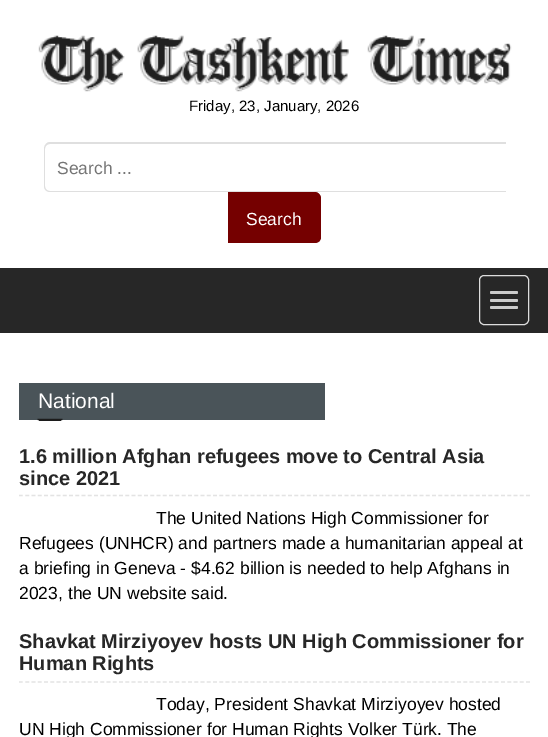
%!PS
<< /PageSize [548 737] >> setpagedevice
/rgb { 3 { 255 div 3 1 roll } repeat setrgbcolor } def
/font { [ exch dup neg 0 0 3 -1 roll 0 0 ] selectfont } def
/roundrect { 5 dict begin { /r /h /w /y /x } { exch def } forall
  x r add y moveto x w add y 2 copy h add r arct x w add y h add x 1 index r arct
  x y h add x y r arct x y 2 copy exch w add exch r arct closepath end } def
/picture { 5 dict begin { /h /w /y /x /name } { exch def } forall
  gsave x y translate w h scale
  w h 8 [w 0 0 h 0 0] name (r) file false 3 colorimage grestore end } def
0 737 translate 1 -1 scale
4 setmiterlimit
255 255 255 rgb
0 0 548 737 rectfill
(img/1.rgb) 38 35 474 57 picture
223 223 223 rgb
50 142 moveto 506 142 lineto 506 192 lineto 50 192 lineto 47 192 44 190 44 186 curveto 44 149 lineto 44 145 47 142 50 142 curveto closepath 50 144 moveto 506 144 lineto 506 191 lineto 50 191 lineto 47 191 45 189 45 186 curveto 45 149 lineto 45 146 47 144 50 144 curveto closepath eofill
117 0 0 rgb
228 193 moveto 315 193 lineto 318.5 193 321 195.5 321 199 curveto 321 237 lineto 321 240.5 318.5 243 315 243 curveto 228 243 lineto closepath fill
228 192 moveto 315 192 lineto 318 192 321 195 321 199 curveto 321 236 lineto 321 240 318 242 315 242 curveto 228 242 lineto closepath 228 194 moveto 315 194 lineto 318 194 320 196 320 199 curveto 320 236 lineto 320 239 318 241 315 241 curveto 228 241 lineto closepath eofill
39 39 39 rgb
0 268 548 65 rectfill
221 221 221 rgb
479.5 275.5 49 49 4.5 roundrect stroke
204 204 204 rgb
490 291 28 3 1.5 roundrect fill
490 299 28 3 1.5 roundrect fill
490 306 28 3 1.5 roundrect fill
74 84 89 rgb
19 383 306 37 rectfill
(img/2.rgb) 37 418 26 3 picture
227 227 227 rgb
1.2 setlinewidth
[3.75 2.51] 0 setdash
19 495.5 moveto 530 495.5 lineto stroke
19 682 moveto 530 682 lineto stroke
/LiberationSans-Regular 15 font
0 0 0 rgb
189 111 moveto (Friday, 23, January, 2026) show
/LiberationSans-Regular 17.5 font
117 117 117 rgb
57 174 moveto (Search ...) show
255 255 255 rgb
246 225 moveto (Search) show
/LiberationSans-Regular 21 font
38 408 moveto (National) show
/LiberationSans-Bold 20 font
39 39 39 rgb
19 463 moveto (1.6 million Afghan refugees move to Central Asia) show
19 485 moveto (since 2021) show
/LiberationSans-Regular 17.5 font
0 0 0 rgb
[
  [(The United Nations High Commissioner for) 156 524]
  [(Refugees \(UNHCR\) and partners made a humanitarian appeal at) 19 549]
  [(a briefing in Geneva - $4.62 billion is needed to help Afghans in) 19 574]
  [(2023, the UN website said.) 19 599]
] { aload pop moveto show } forall
/LiberationSans-Bold 20 font
39 39 39 rgb
19 648 moveto (Shavkat Mirziyoyev hosts UN High Commissioner for) show
19 670 moveto (Human Rights) show
/LiberationSans-Regular 17.5 font
0 0 0 rgb
156 710 moveto (Today, President Shavkat Mirziyoyev hosted) show
19 735 moveto (UN High Commissioner for Human Rights Volker Türk. The) show
showpage
